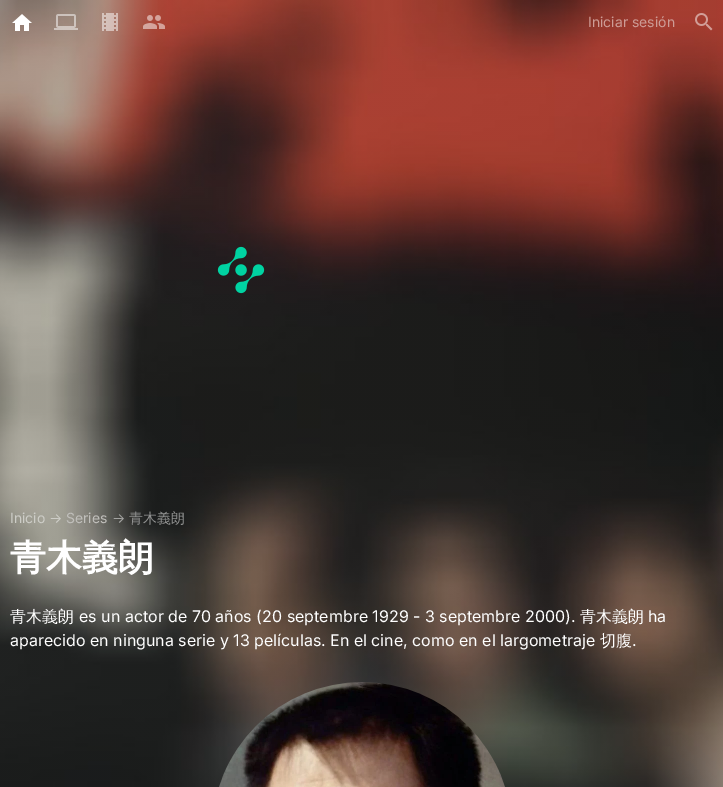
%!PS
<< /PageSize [723 787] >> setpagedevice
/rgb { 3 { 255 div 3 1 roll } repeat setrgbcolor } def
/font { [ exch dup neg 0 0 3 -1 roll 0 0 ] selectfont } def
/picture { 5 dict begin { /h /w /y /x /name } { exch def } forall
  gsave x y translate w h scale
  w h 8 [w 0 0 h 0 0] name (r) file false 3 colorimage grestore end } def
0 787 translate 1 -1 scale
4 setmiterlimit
255 255 255 rgb
0 0 723 787 rectfill
(img/1.rgb) 0 0 723 787 picture
(img/2.rgb) 12 14 20 17 picture
(img/3.rgb) 54 14 24 16 picture
(img/4.rgb) 102 13 16 18 picture
(img/5.rgb) 143 15 22 14 picture
(img/6.rgb) 695 13 18 18 picture
(img/7.rgb) 217 246 48 48 picture
(img/8.rgb) 219 682 286 105 picture
/Inter-Regular 14 font
205 156 150 rgb
588 27 moveto (Iniciar sesión) show
205 205 199 rgb
10 523 moveto (Inicio) show
49 523 moveto (→) show
192 191 187 rgb
66 523 moveto (Series) show
163 163 161 rgb
112 523 moveto (→) show
/WenQuanYiZenHei-Medium 14 font
144 145 144 rgb
129 523 moveto (青木義朗) show
/WenQuanYiZenHei-Bold 36 font
255 255 255 rgb
10 570 moveto (青木義朗) show
/WenQuanYiZenHei-Medium 16 font
10 622 moveto (青木義朗) show
/Inter-Regular 16 font
79 622 moveto (es un actor de 70 años \(20 septembre 1929 - 3 septembre 2000\).) show
/WenQuanYiZenHei-Medium 16 font
580 622 moveto (青木義朗) show
/Inter-Regular 16 font
648 622 moveto (ha) show
10 646 moveto (aparecido en ninguna serie y 13 películas. En el cine, como en el largometraje) show
/WenQuanYiZenHei-Medium 16 font
600 646 moveto (切腹) show
/Inter-Regular 16 font
632 646 moveto (.) show
showpage
